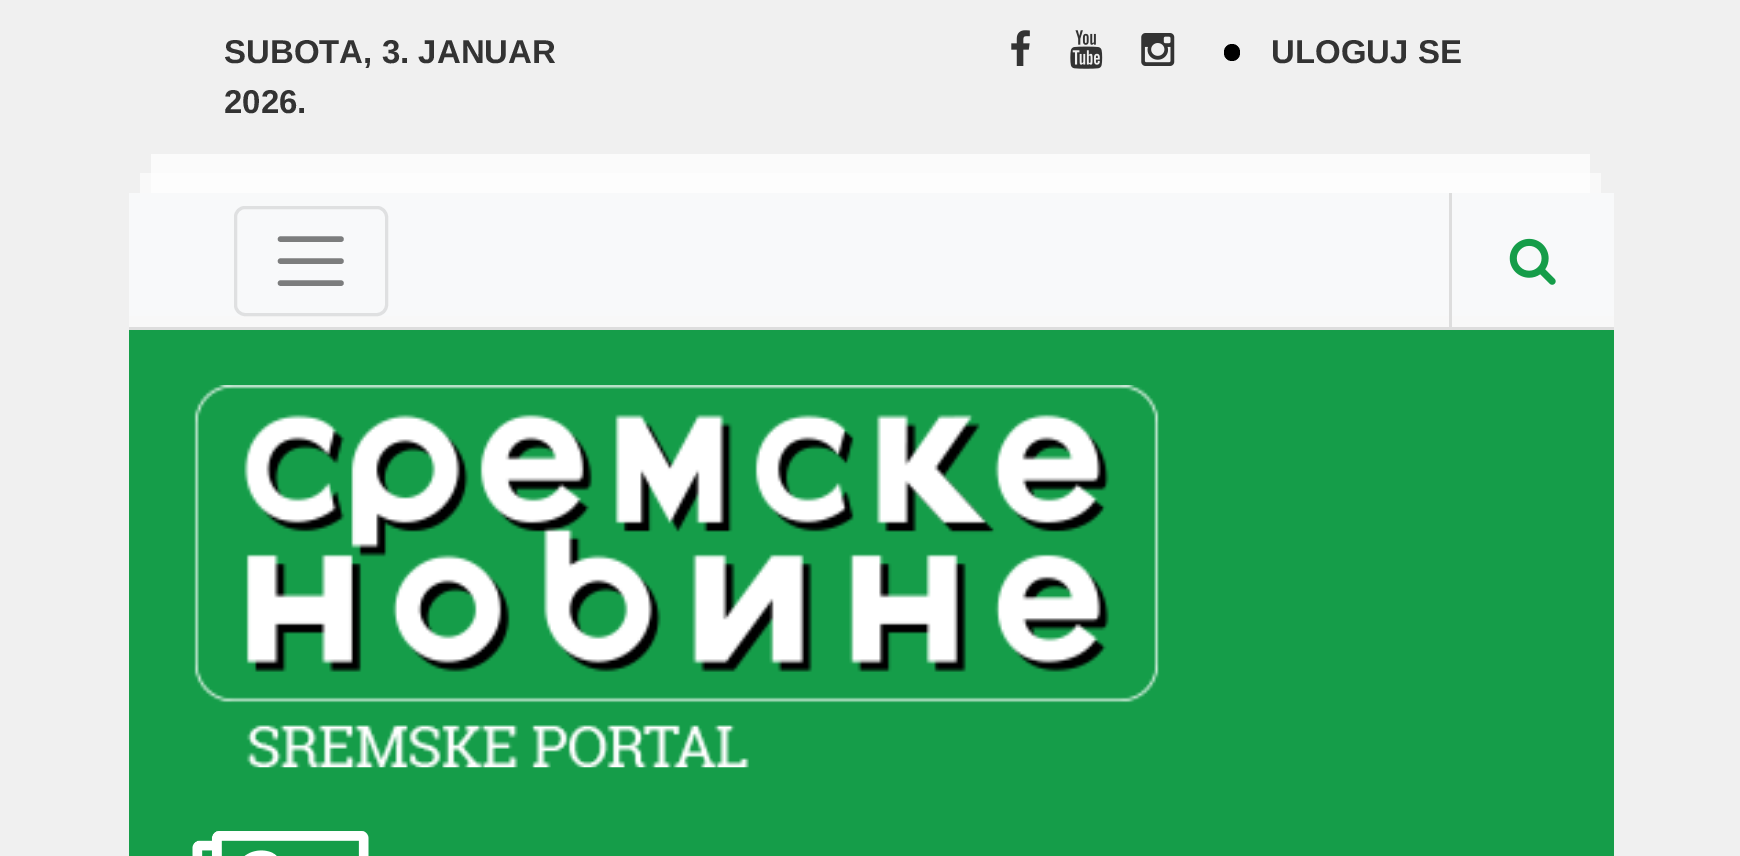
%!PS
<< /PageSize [1740 856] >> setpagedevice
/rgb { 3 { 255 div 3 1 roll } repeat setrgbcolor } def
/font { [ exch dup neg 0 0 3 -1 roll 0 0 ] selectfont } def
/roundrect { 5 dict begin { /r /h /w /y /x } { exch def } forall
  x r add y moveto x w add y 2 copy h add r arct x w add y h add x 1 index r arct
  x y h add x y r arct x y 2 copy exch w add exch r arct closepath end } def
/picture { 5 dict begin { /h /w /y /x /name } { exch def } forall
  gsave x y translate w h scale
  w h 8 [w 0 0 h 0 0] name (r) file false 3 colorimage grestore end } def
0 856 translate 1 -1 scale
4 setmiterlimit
240 240 240 rgb
0 0 1740 856 rectfill
251 251 251 rgb
151 154 1439 19 rectfill
(img/1.rgb) 1011 30 19 36 picture
(img/2.rgb) 1070 30 33 39 picture
(img/3.rgb) 1141 33 34 33 picture
0 0 0 rgb
1224 44 16 17 8 roundrect fill
[
  [140 173 1461 20 249 249 249]
  [151 173 1439 20 253 253 253]
  [129 316 1485 11 248 248 248]
  [129 327 1485 3 221 221 221]
  [129 193 1485 123 248 249 250]
] { aload pop rgb rectfill } forall
223 224 225 rgb
3 setlinewidth
235.5 207.5 151 107 9.5 roundrect stroke
124 125 125 rgb
5.5 setlinewidth
1 setlinecap
280.5 239 moveto 341 239 lineto 280.5 261 moveto 341 261 lineto 280.5 283 moveto 341 283 lineto stroke
221 221 221 rgb
1449 193 3 137 rectfill
(img/4.rgb) 1509 238 47 47 picture
21 157 73 rgb
129 330 1485 526 rectfill
(img/5.rgb) 194 385 965 383 picture
(img/6.rgb) 192 831 177 25 picture
/LiberationSans-Bold 33 font
51 51 51 rgb
[
  [(SUBOTA, 3. JANUAR) 224 63]
  [(2026.) 224 113]
  [(ULOGUJ SE) 1271 63]
] { aload pop moveto show } forall
showpage
